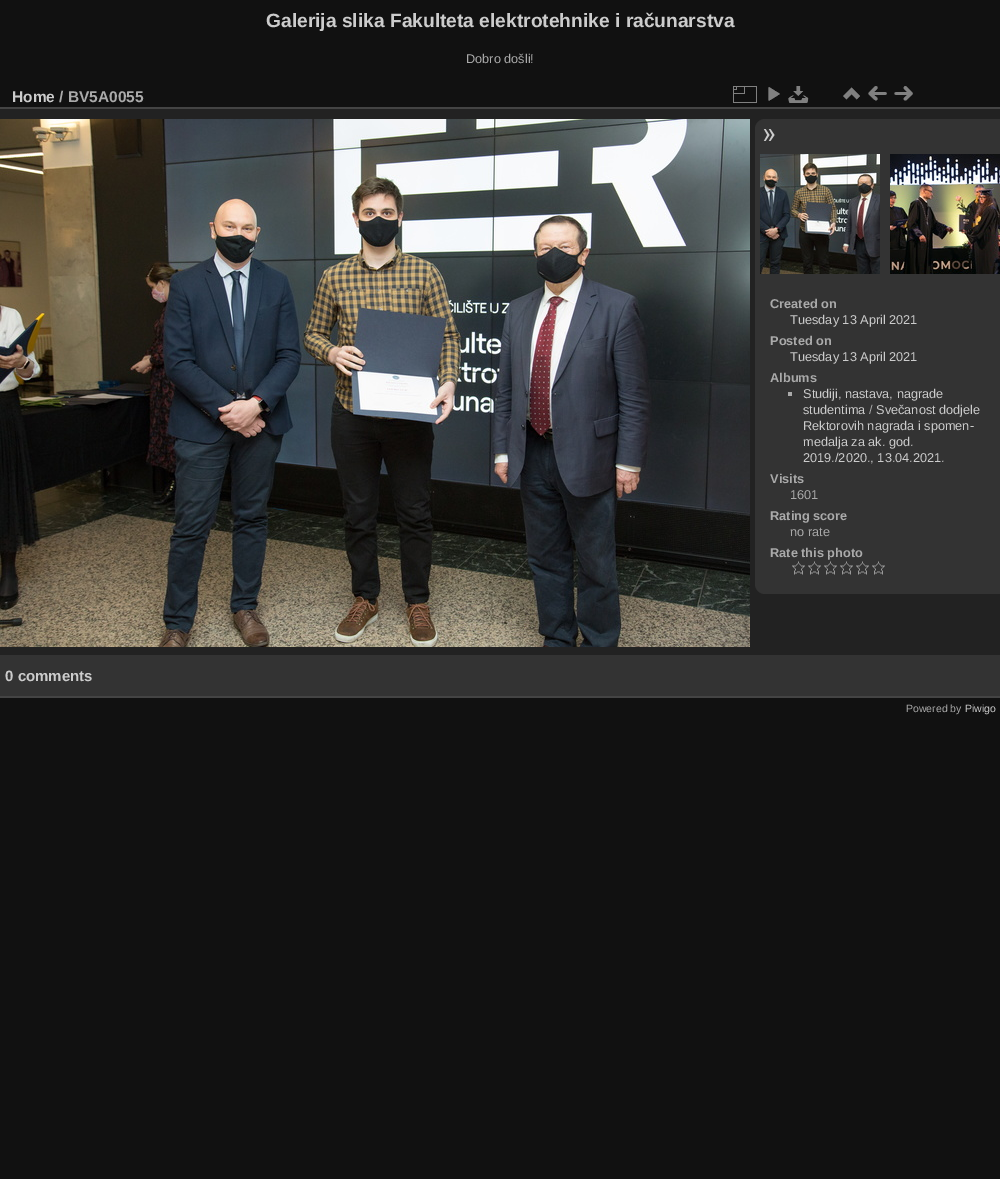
%!PS
<< /PageSize [1000 1179] >> setpagedevice
/rgb { 3 { 255 div 3 1 roll } repeat setrgbcolor } def
/font { [ exch dup neg 0 0 3 -1 roll 0 0 ] selectfont } def
/picture { 5 dict begin { /h /w /y /x /name } { exch def } forall
  gsave x y translate w h scale
  w h 8 [w 0 0 h 0 0] name (r) file false 3 colorimage grestore end } def
0 1179 translate 1 -1 scale
4 setmiterlimit
17 17 17 rgb
0 0 1000 1179 rectfill
[
  [0 109 1000 546 34 34 34]
  [0 696 1000 2 68 68 68]
  [0 107 1000 2 68 68 68]
] { aload pop rgb rectfill } forall
(img/1.rgb) 733 86 24 17 picture
(img/2.rgb) 768 87 12 14 picture
(img/3.rgb) 788 86 21 17 picture
(img/4.rgb) 843 87 17 13 picture
(img/5.rgb) 868 86 19 15 picture
(img/6.rgb) 894 86 19 15 picture
(img/7.rgb) 0 119 750 528 picture
51 51 51 rgb
765 119 moveto 1000 119 lineto 1000 594 lineto 765 594 lineto 759.5 594 755 589.5 755 584 curveto 755 129 lineto 755 123.5 759.5 119 765 119 curveto closepath fill
(img/8.rgb) 763 129 12 12 picture
(img/9.rgb) 760 154 120 120 picture
(img/10.rgb) 890 154 110 120 picture
170 170 170 rgb
788 392 4 4 rectfill
(img/11.rgb) 792 561 13 14 picture
(img/11.rgb) 808 561 13 14 picture
(img/11.rgb) 824 561 13 14 picture
(img/11.rgb) 840 561 13 14 picture
(img/11.rgb) 856 561 13 14 picture
(img/11.rgb) 872 561 13 14 picture
51 51 51 rgb
0 655 1000 41 rectfill
/LiberationSans-Bold 19.2 font
204 204 204 rgb
266 27 moveto (Galerija slika Fakulteta elektrotehnike i računarstva) show
/LiberationSans-Regular 12.75 font
170 170 170 rgb
466 63 moveto (Dobro došli!) show
/LiberationSans-Bold 15.5 font
204 204 204 rgb
12 102 moveto (Home) show
170 170 170 rgb
59 102 moveto (/ BV5A0055) show
/LiberationSans-Bold 12.75 font
770 308 moveto (Created on) show
/LiberationSans-Regular 12.75 font
204 204 204 rgb
790 324 moveto (Tuesday 13 April 2021) show
/LiberationSans-Bold 12.75 font
170 170 170 rgb
770 345 moveto (Posted on) show
/LiberationSans-Regular 12.75 font
204 204 204 rgb
790 361 moveto (Tuesday 13 April 2021) show
/LiberationSans-Bold 12.75 font
170 170 170 rgb
770 382 moveto (Albums) show
/LiberationSans-Regular 12.75 font
204 204 204 rgb
803 398 moveto (Studiji, nastava, nagrade) show
803 414 moveto (studentima) show
170 170 170 rgb
869 414 moveto (/) show
204 204 204 rgb
[
  [(Svečanost dodjele) 876 414]
  [(Rektorovih nagrada i spomen-) 803 430]
  [(medalja za ak. god.) 803 446]
  [(2019./2020., 13.04.2021.) 803 462]
] { aload pop moveto show } forall
/LiberationSans-Bold 12.75 font
170 170 170 rgb
770 483 moveto (Visits) show
/LiberationSans-Regular 12.75 font
790 499 moveto (1601) show
/LiberationSans-Bold 12.75 font
770 520 moveto (Rating score) show
/LiberationSans-Regular 12.75 font
790 536 moveto (no rate) show
/LiberationSans-Bold 12.75 font
770 557 moveto (Rate this photo) show
/LiberationSans-Bold 15 font
204 204 204 rgb
5 681 moveto (0 comments) show
/LiberationSans-Regular 10.5 font
170 170 170 rgb
906 712 moveto (Powered by) show
204 204 204 rgb
965 712 moveto (Piwigo) show
showpage
